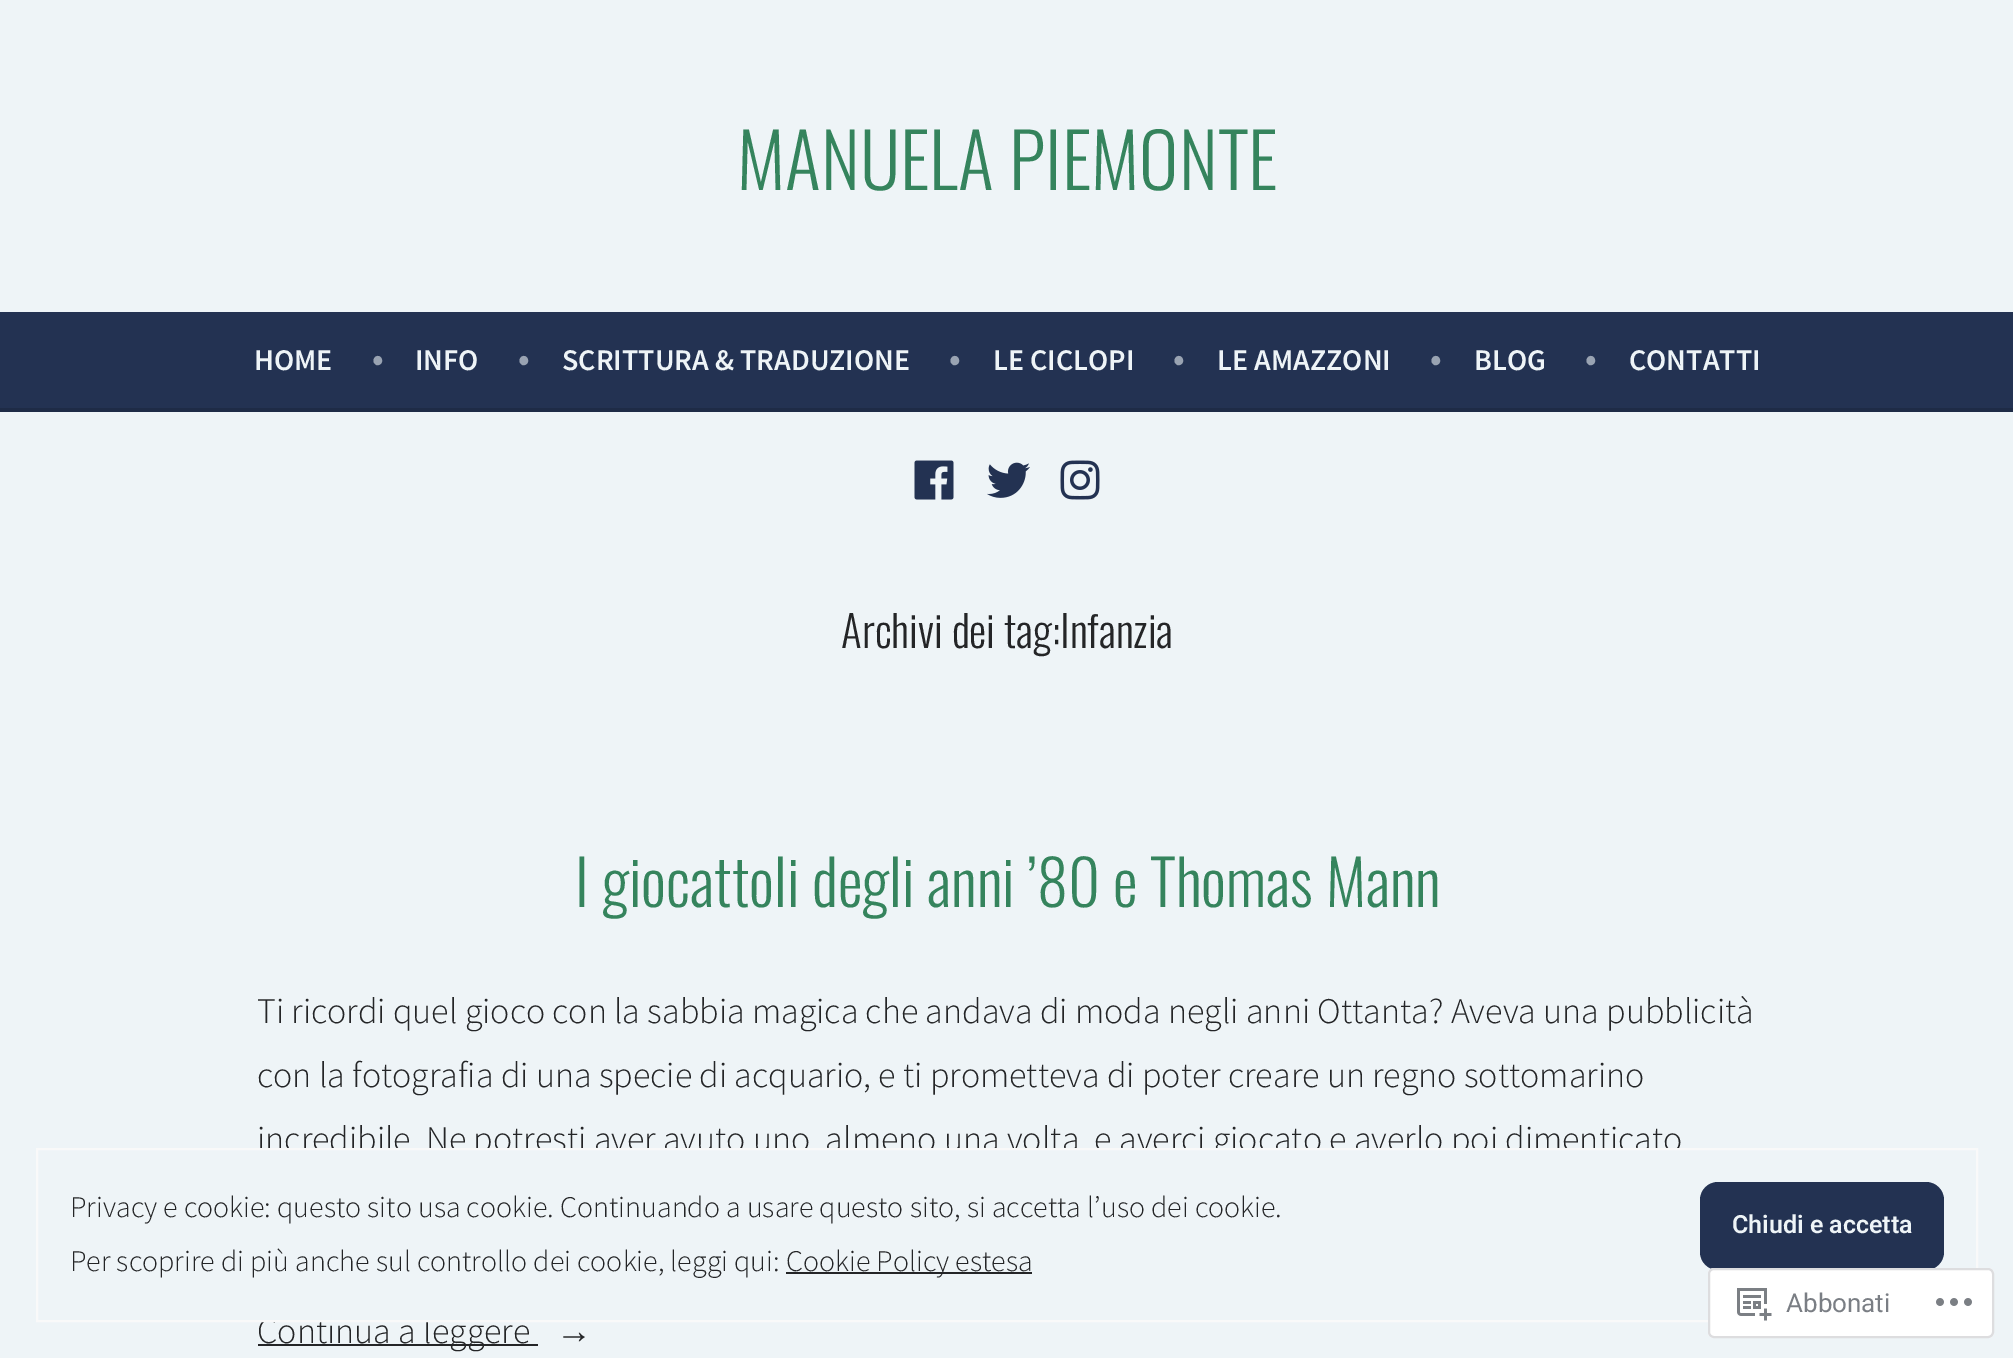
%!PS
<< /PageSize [2013 1358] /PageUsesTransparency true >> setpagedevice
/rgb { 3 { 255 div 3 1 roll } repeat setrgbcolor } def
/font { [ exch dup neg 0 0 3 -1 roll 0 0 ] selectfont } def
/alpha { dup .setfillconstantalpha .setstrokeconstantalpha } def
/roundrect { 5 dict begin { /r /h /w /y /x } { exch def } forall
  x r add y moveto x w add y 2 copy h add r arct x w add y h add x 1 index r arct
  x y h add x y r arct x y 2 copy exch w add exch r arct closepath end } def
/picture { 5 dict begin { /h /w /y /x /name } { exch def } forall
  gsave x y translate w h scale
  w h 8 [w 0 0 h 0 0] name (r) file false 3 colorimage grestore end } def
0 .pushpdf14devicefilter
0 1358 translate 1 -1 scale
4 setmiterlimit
238 244 247 rgb
0 0 2013 1358 rectfill
35 50 82 rgb
0 312 2013 96 rectfill
30 43 70 rgb
0 408 2013 4 rectfill
(img/1.rgb) 914 460 40 40 picture
(img/2.rgb) 987 462 43 36 picture
(img/3.rgb) 1060 460 40 40 picture
36 37 39 rgb
258 1344 280 2 rectfill
/Oswald-Light 74.75 font
53 132 93 rgb
737 190 moveto (MANUELA PIEMONTE) show
/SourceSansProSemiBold-SemiBold 30 font
238 244 247 rgb
254 370 moveto (HOME) show
/SourceSansProSemiBold-SemiBold 36 font
153 163 178 rgb
372 370 moveto (•) show
/SourceSansProSemiBold-SemiBold 30 font
238 244 247 rgb
415 370 moveto (INFO) show
/SourceSansProSemiBold-SemiBold 36 font
153 163 178 rgb
518 370 moveto (•) show
/SourceSansProSemiBold-SemiBold 30 font
238 244 247 rgb
562 370 moveto (SCRITTURA & TRADUZIONE) show
/SourceSansProSemiBold-SemiBold 36 font
153 163 178 rgb
949 370 moveto (•) show
/SourceSansProSemiBold-SemiBold 30 font
238 244 247 rgb
993 370 moveto (LE CICLOPI) show
/SourceSansProSemiBold-SemiBold 36 font
153 163 178 rgb
1173 370 moveto (•) show
/SourceSansProSemiBold-SemiBold 30 font
238 244 247 rgb
1217 370 moveto (LE AMAZZONI) show
/SourceSansProSemiBold-SemiBold 36 font
153 163 178 rgb
1430 370 moveto (•) show
/SourceSansProSemiBold-SemiBold 30 font
238 244 247 rgb
1474 370 moveto (BLOG) show
/SourceSansProSemiBold-SemiBold 36 font
153 163 178 rgb
1585 370 moveto (•) show
/SourceSansProSemiBold-SemiBold 30 font
238 244 247 rgb
1629 370 moveto (CONTATTI) show
/Oswald-Light 43.25 font
36 37 39 rgb
841 648 moveto (Archivi dei tag:Infanzia) show
/Oswald-Light 62.25 font
53 132 93 rgb
575 907 moveto (I giocattoli degli anni ’80 e Thomas Mann) show
/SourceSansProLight-Light 36 font
36 37 39 rgb
[
  [(Ti ricordi quel gioco con la sabbia magica che andava di moda negli anni Ottanta? Aveva una pubblicità) 257 1023]
  [(con la fotografia di una specie di acquario, e ti prometteva di poter creare un regno sottomarino) 257 1087]
  [(incredibile. Ne potresti aver avuto uno, almeno una volta, e averci giocato e averlo poi dimenticato) 257 1151]
  [(Continua a leggere) 257 1343]
] { aload pop moveto show } forall
/LiberationSans-Regular 36 font
556 1343 moveto (→) show
238 244 247 rgb
260 1150 1418 170 rectfill
249 249 249 rgb
2 setlinewidth
37 1149 1940 172 rectstroke
/SourceSansProLight-Light 30 font
36 37 39 rgb
70 1217 moveto (Privacy e cookie: questo sito usa cookie. Continuando a usare questo sito, si accetta l’uso dei cookie.) show
35 50 82 rgb
1700 1182 244 88 18 roundrect fill
/Roboto-SemiBold 25 font
238 244 247 rgb
1732 1233 moveto (Chiudi e accetta) show
/SourceSansProLight-Light 30 font
36 37 39 rgb
70 1271 moveto (Per scoprire di più anche sul controllo dei cookie, leggi qui:) show
786 1272 246 2 rectfill
786 1271 moveto (Cookie Policy estesa) show
0.98 alpha
255 255 255 rgb
1708 1268 286 70 6 roundrect fill
220 220 222 rgb
1709 1269 284 68 5 roundrect stroke
1 alpha
(img/4.rgb) 1737 1288 35 33 picture
/Roboto-Regular 26 font
122 126 132 rgb
1786 1312 moveto (Abbonati) show
(img/5.rgb) 1936 1298 36 8 picture
.poppdf14devicefilter showpage
